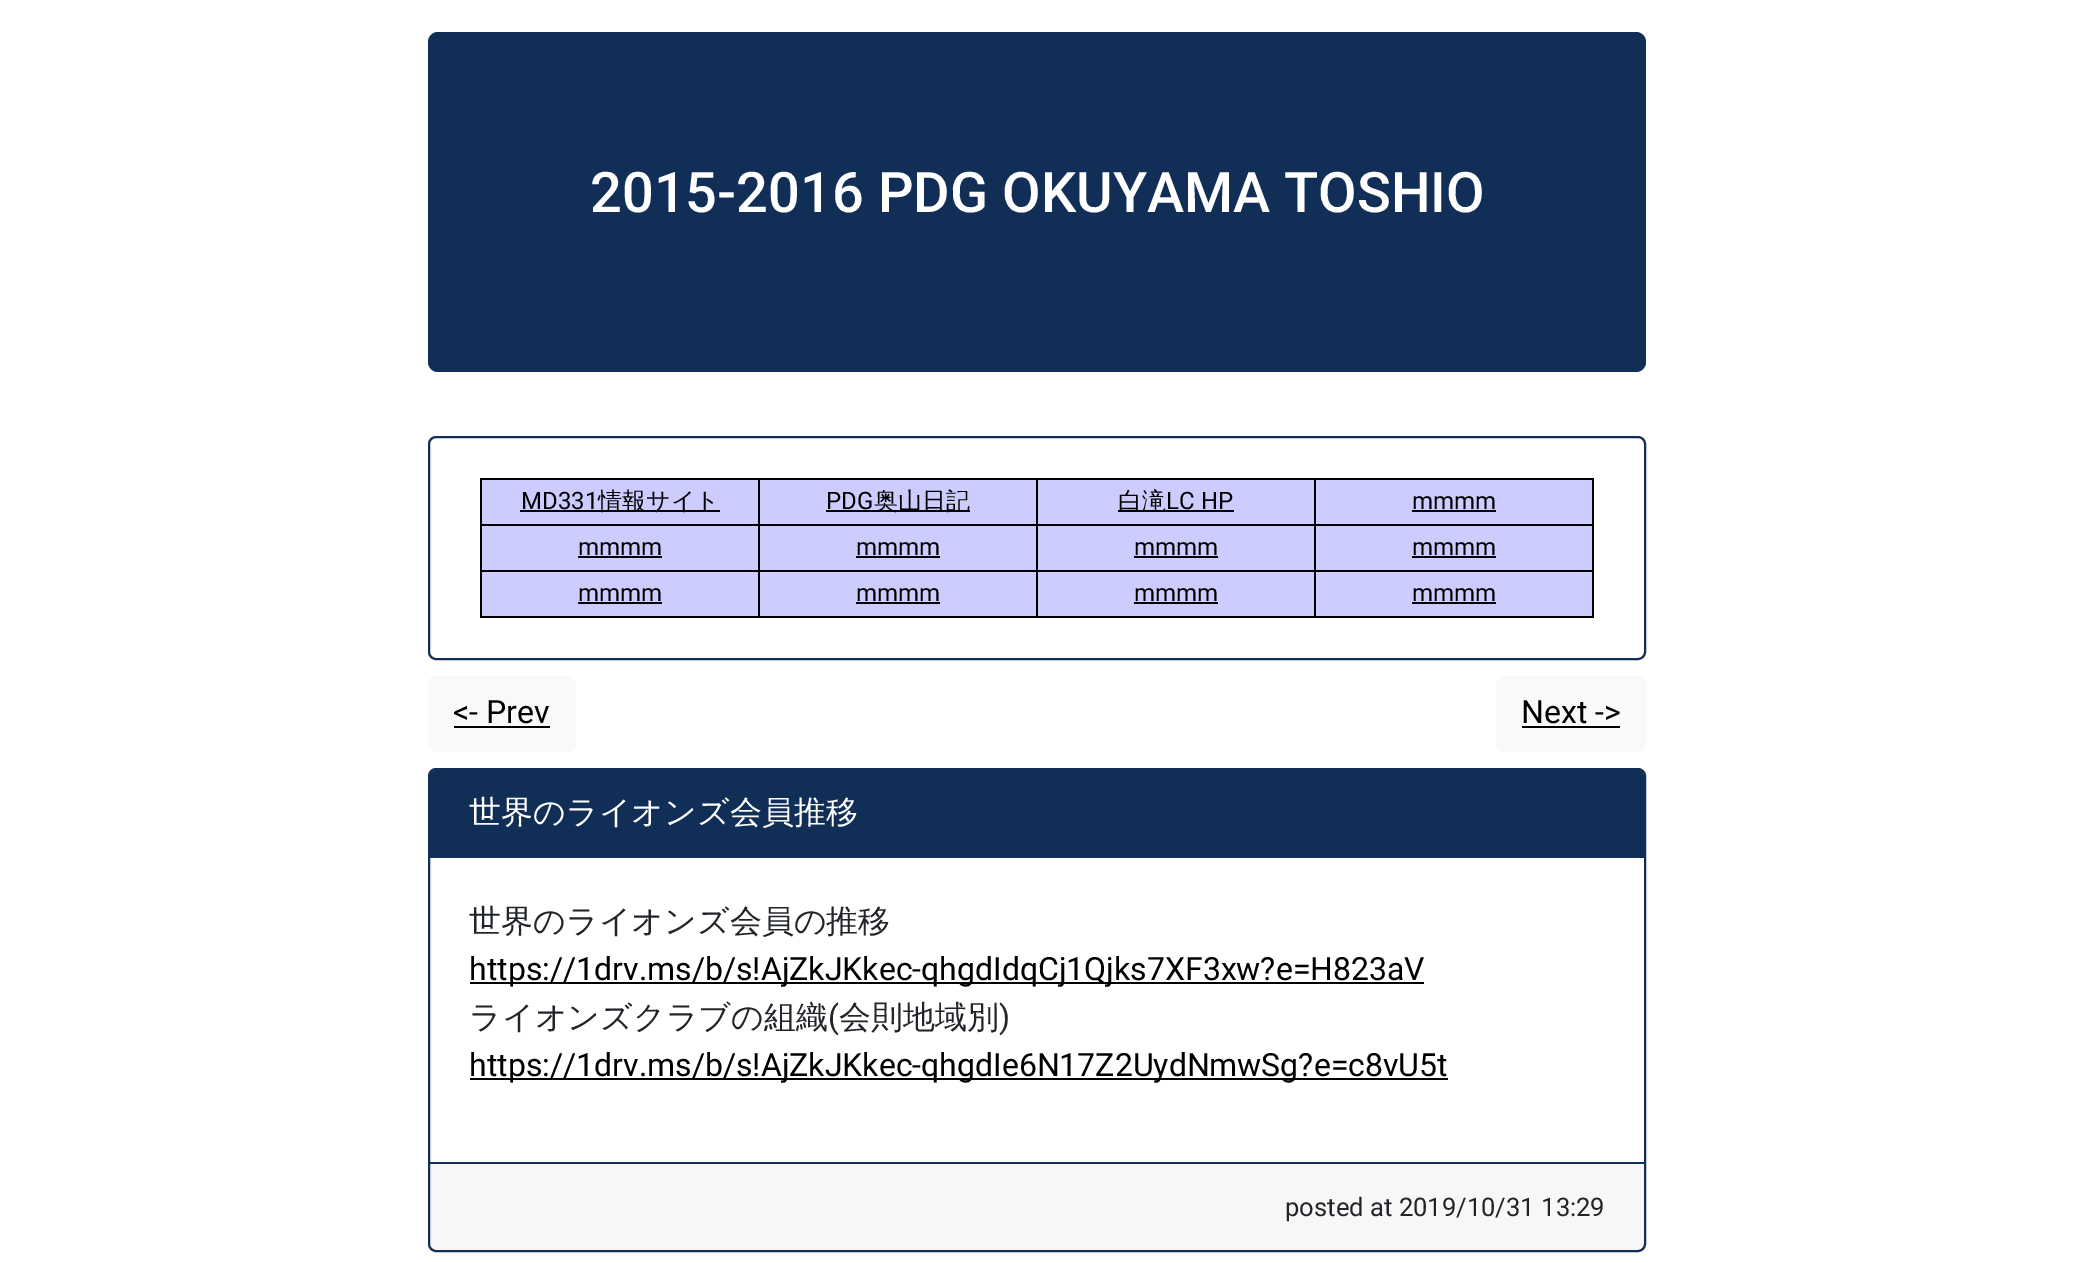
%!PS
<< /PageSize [2074 1263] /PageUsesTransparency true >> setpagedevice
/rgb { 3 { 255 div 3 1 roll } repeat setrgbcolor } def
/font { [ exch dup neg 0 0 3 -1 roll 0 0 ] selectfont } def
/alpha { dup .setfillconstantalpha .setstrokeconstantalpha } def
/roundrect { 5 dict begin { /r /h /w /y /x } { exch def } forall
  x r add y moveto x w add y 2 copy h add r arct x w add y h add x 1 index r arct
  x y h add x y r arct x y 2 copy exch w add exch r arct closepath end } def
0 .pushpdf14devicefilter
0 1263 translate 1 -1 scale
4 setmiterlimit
255 255 255 rgb
0 0 2074 1263 rectfill
17 46 87 rgb
428 32 1218 340 10 roundrect fill
2 setlinewidth
429 437 1216 222 7 roundrect stroke
[
  [482 480 276 44 204 204 255]
  [1314 478 280 2 0 0 0]
  [1314 524 280 2 0 0 0]
  [1314 570 280 2 0 0 0]
  [1592 570 2 48 0 0 0]
  [1314 616 280 2 0 0 0]
  [1314 570 2 48 0 0 0]
  [1036 570 280 2 0 0 0]
  [1314 524 2 48 0 0 0]
  [1036 524 280 2 0 0 0]
  [1314 478 2 48 0 0 0]
  [1036 478 280 2 0 0 0]
  [1036 616 280 2 0 0 0]
  [1036 570 2 48 0 0 0]
  [758 570 280 2 0 0 0]
  [1036 524 2 48 0 0 0]
  [758 524 280 2 0 0 0]
  [1036 478 2 48 0 0 0]
  [758 478 280 2 0 0 0]
  [758 616 280 2 0 0 0]
  [758 570 2 48 0 0 0]
  [480 570 280 2 0 0 0]
  [758 524 2 48 0 0 0]
  [480 524 280 2 0 0 0]
  [758 478 2 48 0 0 0]
  [480 478 280 2 0 0 0]
  [480 616 280 2 0 0 0]
  [480 570 2 48 0 0 0]
  [480 524 2 48 0 0 0]
  [480 478 2 48 0 0 0]
  [520 510 200 2 0 0 0]
  [760 480 276 44 204 204 255]
  [826 510 144 2 0 0 0]
  [1038 480 276 44 204 204 255]
  [1118 510 116 2 0 0 0]
  [1316 480 276 44 204 204 255]
  [1592 524 2 48 0 0 0]
  [1592 478 2 48 0 0 0]
  [1412 510 84 2 0 0 0]
  [482 526 276 44 204 204 255]
  [578 556 84 2 0 0 0]
  [760 526 276 44 204 204 255]
  [856 556 84 2 0 0 0]
  [1038 526 276 44 204 204 255]
  [1134 556 84 2 0 0 0]
  [1316 526 276 44 204 204 255]
  [1412 556 84 2 0 0 0]
  [482 572 276 44 204 204 255]
  [578 602 84 2 0 0 0]
  [760 572 276 44 204 204 255]
  [856 602 84 2 0 0 0]
  [1038 572 276 44 204 204 255]
  [1134 602 84 2 0 0 0]
  [1316 572 276 44 204 204 255]
  [1412 602 84 2 0 0 0]
] { aload pop rgb rectfill } forall
248 249 250 rgb
428 676 148 76 8 roundrect fill
0 0 0 rgb
454 726 96 2 rectfill
248 249 250 rgb
1496 676 150 76 8 roundrect fill
0 0 0 rgb
1522 726 98 2 rectfill
17 46 87 rgb
429 769 1216 482 7 roundrect stroke
436 770 moveto 1638 770 lineto 1641.5 770 1644 772.5 1644 776 curveto 1644 858 lineto 430 858 lineto 430 776 lineto 430 772.5 432.5 770 436 770 curveto closepath fill
[
  [470 982 954 2 0 0 0]
  [470 1078 978 2 0 0 0]
] { aload pop rgb rectfill } forall
0.03 alpha
[
  [430 1164 1214 86 0 0 0]
] { aload pop rgb rectfill } forall
1 alpha
[
  [430 1162 1214 2 17 46 87]
] { aload pop rgb rectfill } forall
/Roboto-Medium 56 font
255 255 255 rgb
590 212 moveto (2015-2016 PDG OKUYAMA TOSHIO) show
/Roboto-Regular 24 font
0 0 0 rgb
521 509 moveto (MD331) show
/WenQuanYiZenHei-Medium 24 font
598 509 moveto (情報サイト) show
/Roboto-Regular 24 font
826 509 moveto (PDG) show
/WenQuanYiZenHei-Medium 24 font
874 509 moveto (奥山日記) show
1118 509 moveto (白滝) show
/Roboto-Regular 24 font
[
  [(LC HP) 1166 509]
  [(mmmm) 1412 509]
  [(mmmm) 578 555]
  [(mmmm) 856 555]
  [(mmmm) 1134 555]
  [(mmmm) 1412 555]
  [(mmmm) 578 601]
  [(mmmm) 856 601]
  [(mmmm) 1134 601]
  [(mmmm) 1412 601]
] { aload pop moveto show } forall
/Roboto-Regular 32 font
453 723 moveto (<- Prev) show
1521 723 moveto (Next ->) show
/WenQuanYiZenHei-Medium 32 font
255 255 255 rgb
469 823 moveto (世界のライオンズ会員推移) show
33 37 41 rgb
469 932 moveto (世界のライオンズ会員の推移) show
/Roboto-Regular 32 font
0 0 0 rgb
469 980 moveto (https://1drv.ms/b/s!AjZkJKkec-qhgdIdqCj1Qjks7XF3xw?e=H823aV) show
/WenQuanYiZenHei-Medium 32 font
33 37 41 rgb
469 1028 moveto (ライオンズクラブの組織) show
/Roboto-Regular 32 font
828 1028 moveto (\() show
/WenQuanYiZenHei-Medium 32 font
839 1028 moveto (会則地域別) show
/Roboto-Regular 32 font
999 1028 moveto (\)) show
0 0 0 rgb
469 1076 moveto (https://1drv.ms/b/s!AjZkJKkec-qhgdIe6N17Z2UydNmwSg?e=c8vU5t) show
/Roboto-Regular 25.6 font
33 37 41 rgb
1285 1216 moveto (posted at 2019/10/31 13:29) show
.poppdf14devicefilter showpage
